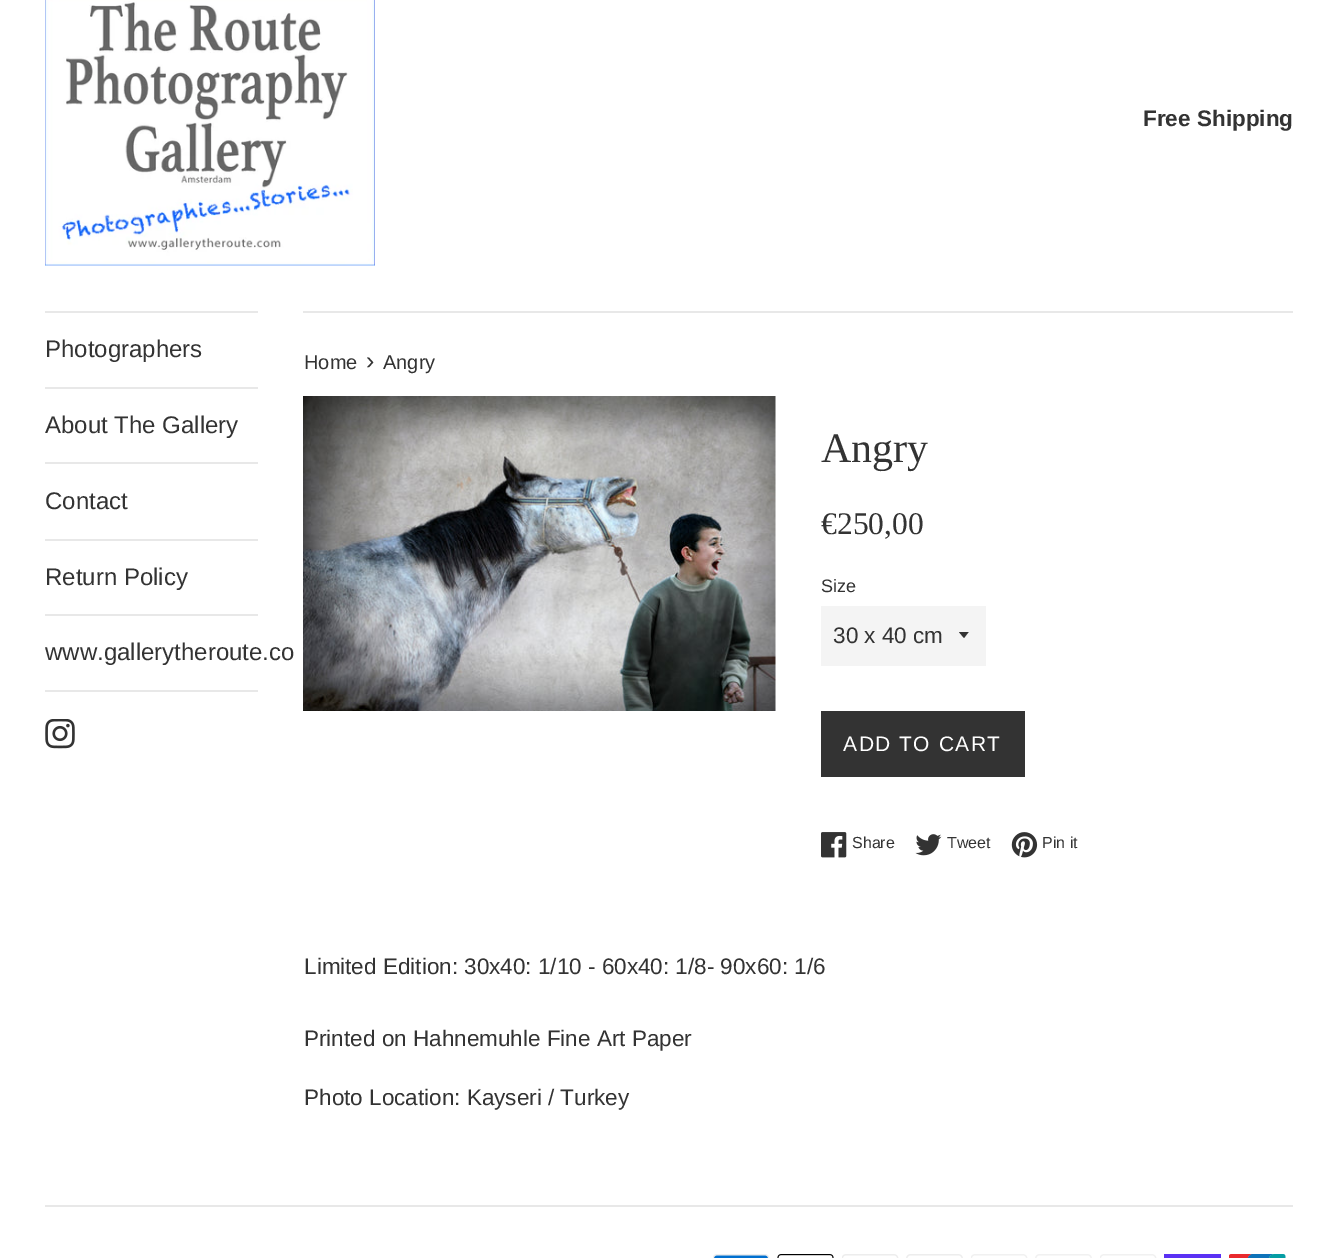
%!PS
<< /PageSize [1337 1258] >> setpagedevice
/rgb { 3 { 255 div 3 1 roll } repeat setrgbcolor } def
/font { [ exch dup neg 0 0 3 -1 roll 0 0 ] selectfont } def
/picture { 5 dict begin { /h /w /y /x /name } { exch def } forall
  gsave x y translate w h scale
  w h 8 [w 0 0 h 0 0] name (r) file false 3 colorimage grestore end } def
0 1258 translate 1 -1 scale
4 setmiterlimit
255 255 255 rgb
0 0 1337 1258 rectfill
(img/1.rgb) 45 0 330 266 picture
[
  [45 311 213 2 232 232 232]
  [45 387 213 2 232 232 232]
  [45 462 213 2 232 232 232]
  [45 539 213 2 232 232 232]
  [45 614 213 2 232 232 232]
  [45 690 213 2 232 232 232]
] { aload pop rgb rectfill } forall
(img/2.rgb) 45 719 30 30 picture
303 311 990 2 rectfill
(img/3.rgb) 303 396 473 315 picture
244 244 244 rgb
821 606 165 60 rectfill
gsave
959 632 12 7 rectclip
51 51 51 rgb
958.5 631.5 moveto 964 638 lineto 969 631.5 lineto closepath fill
grestore
51 51 51 rgb
821 711 204 66 rectfill
(img/4.rgb) 821 832 26 26 picture
(img/5.rgb) 915 834 27 22 picture
(img/6.rgb) 1011 832 27 26 picture
232 232 232 rgb
45 1205 1248 2 rectfill
(img/7.rgb) 713 1254 57 4 picture
(img/8.rgb) 777 1254 57 4 picture
(img/9.rgb) 842 1254 57 4 picture
(img/10.rgb) 906 1254 57 4 picture
(img/11.rgb) 971 1254 57 4 picture
(img/12.rgb) 1035 1254 57 4 picture
(img/11.rgb) 1100 1254 57 4 picture
90 49 244 rgb
1164 1254 57 4 rectfill
(img/13.rgb) 1229 1254 57 4 picture
/LiberationSans-Bold 22.5 font
51 51 51 rgb
1143 126 moveto (Free Shipping) show
/LiberationSans-Regular 24 font
[
  [(Photographers) 45 357]
  [(About The Gallery) 45 433]
  [(Contact) 45 509]
  [(Return Policy) 45 585]
  [(www.gallerytheroute.co) 45 660]
] { aload pop moveto show } forall
/LiberationSans-Regular 20 font
304 369 moveto (Home) show
/LiberationSans-Regular 25 font
366 369 moveto (›) show
/LiberationSans-Regular 20 font
383 369 moveto (Angry) show
/LiberationSerif-Regular 42 font
821 462 moveto (Angry) show
/LiberationSerif-Regular 31.5 font
821 534 moveto (€250,00) show
/LiberationSans-Regular 18 font
821 592 moveto (Size) show
/LiberationSans-Regular 22.5 font
833 643 moveto (30 x 40 cm) show
/LiberationSans-Regular 21 font
255 255 255 rgb
843 751 moveto 1.5 0 (ADD TO CART) ashow
/LiberationSans-Regular 16 font
51 51 51 rgb
[
  [(Share) 852 848]
  [(Tweet) 947 848]
  [(Pin it) 1042 848]
] { aload pop moveto show } forall
/LiberationSans-Regular 22.5 font
[
  [(Limited Edition: 30x40: 1/10 - 60x40: 1/8- 90x60: 1/6) 304 974]
  [(Printed on Hahnemuhle Fine Art Paper) 304 1046]
  [(Photo Location: Kayseri / Turkey) 304 1105]
] { aload pop moveto show } forall
showpage
